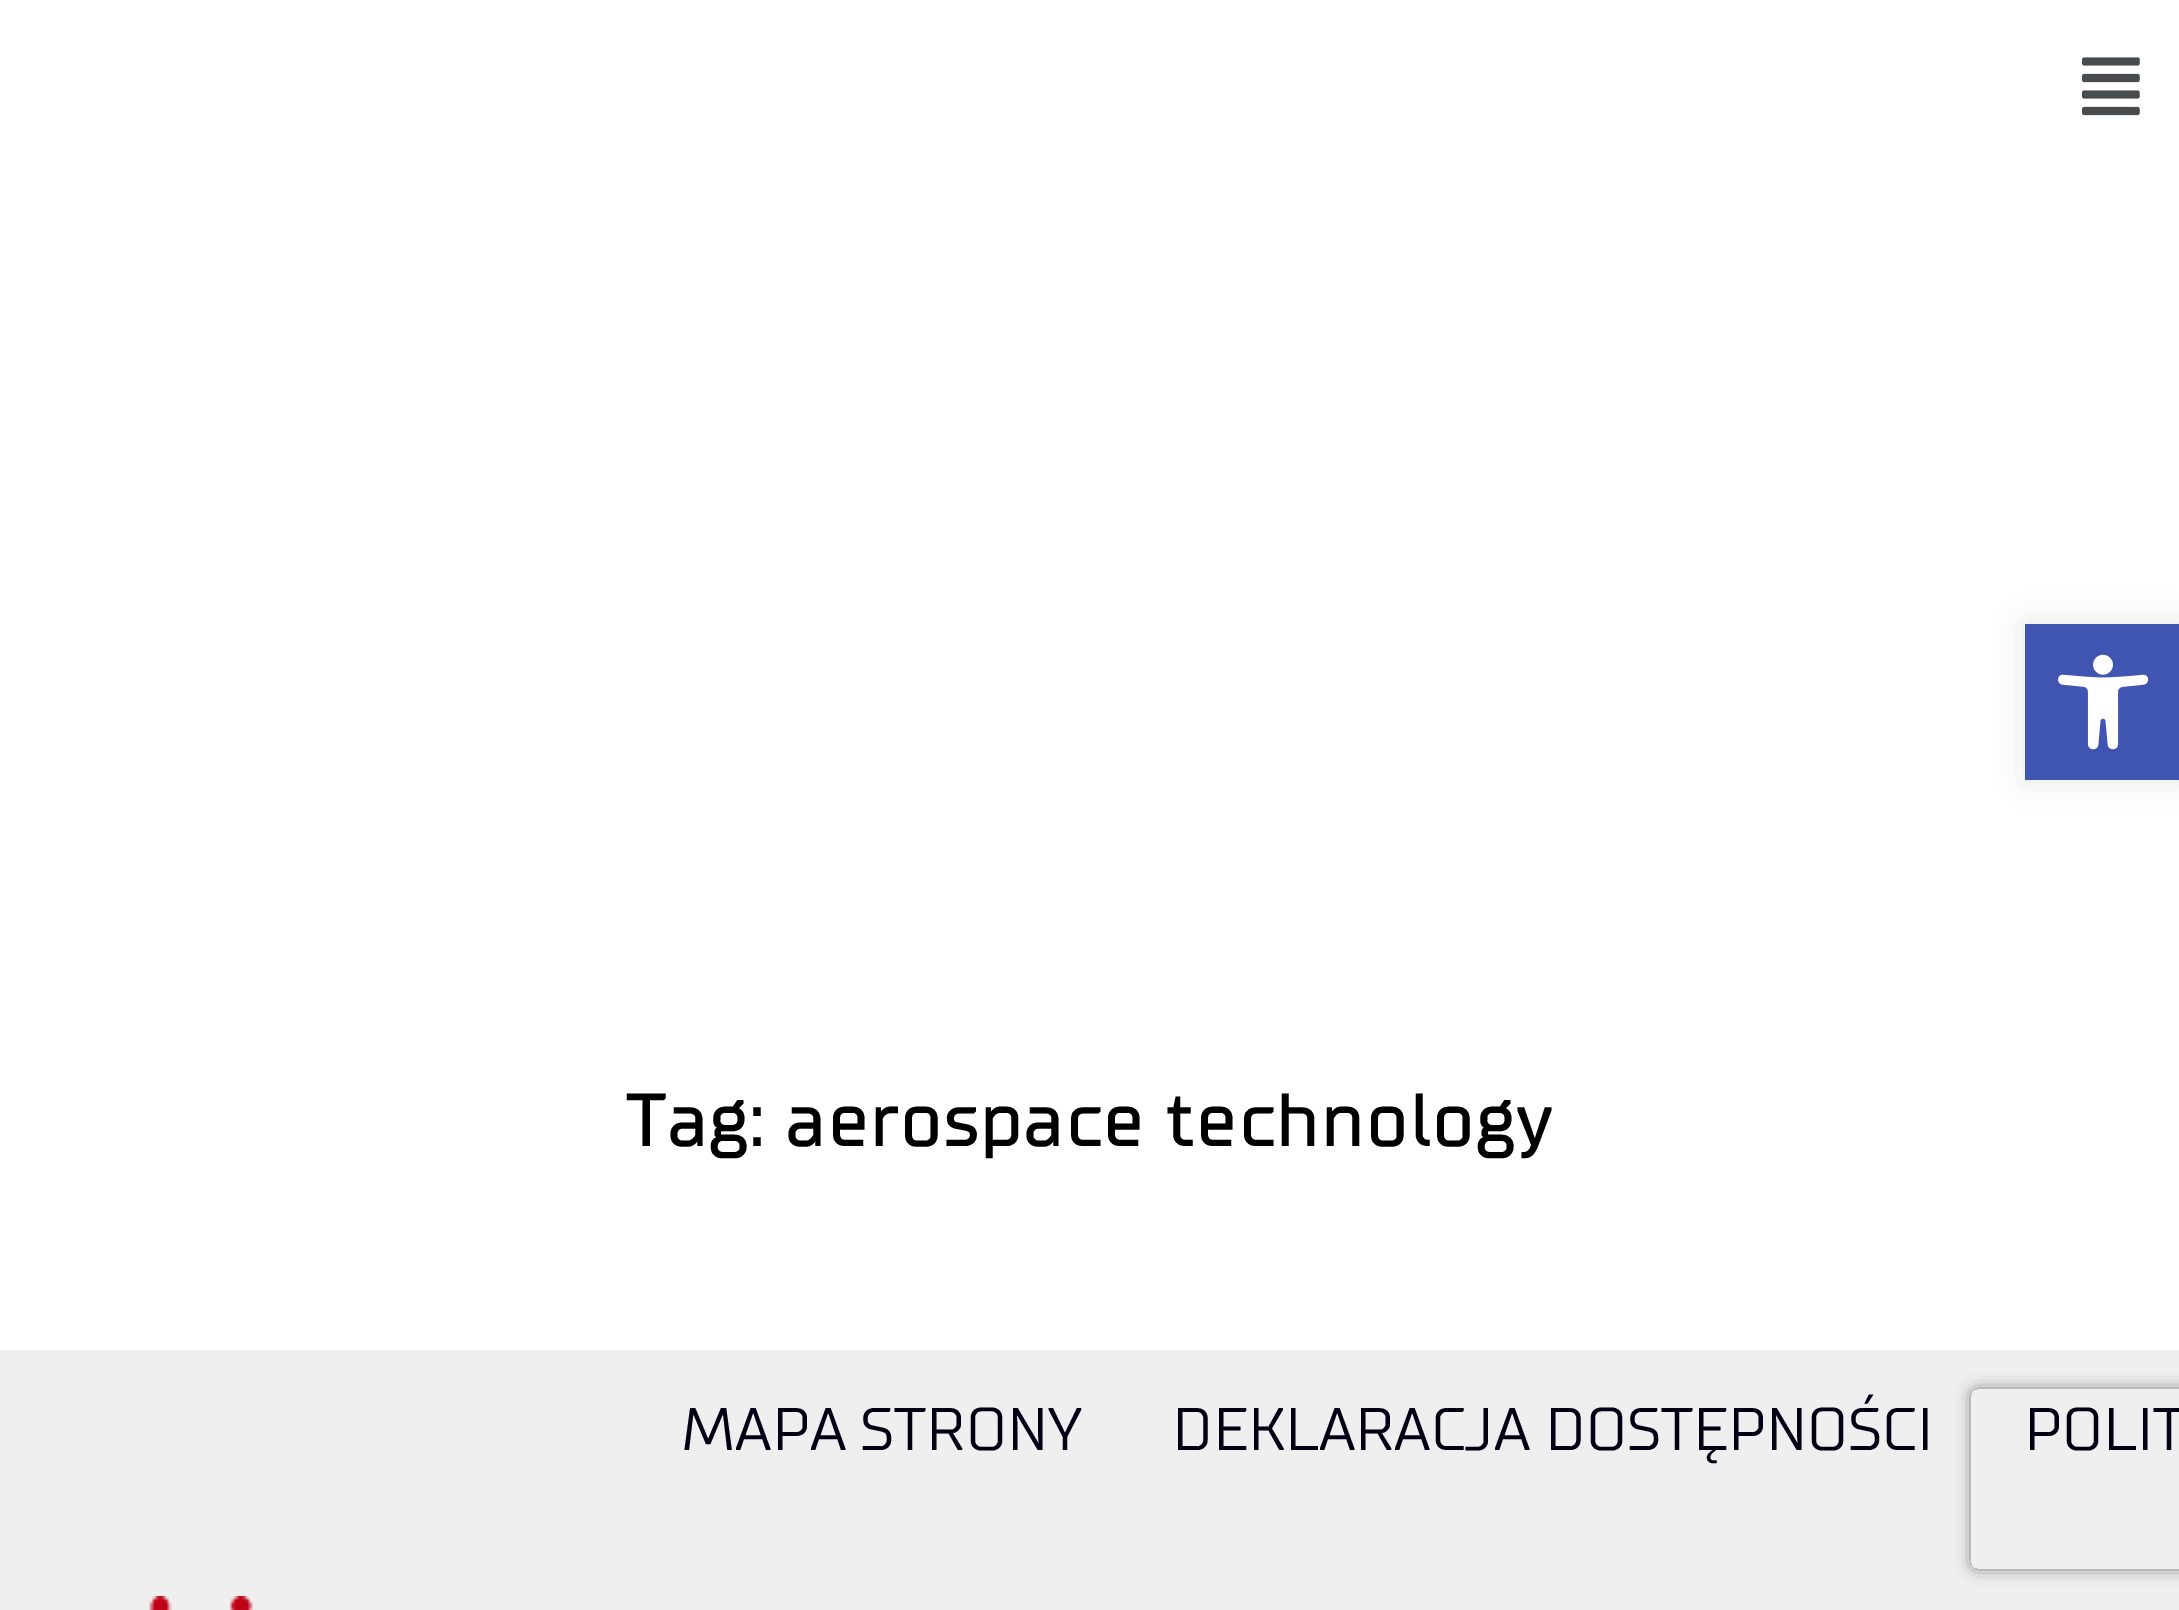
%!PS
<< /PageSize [2179 1610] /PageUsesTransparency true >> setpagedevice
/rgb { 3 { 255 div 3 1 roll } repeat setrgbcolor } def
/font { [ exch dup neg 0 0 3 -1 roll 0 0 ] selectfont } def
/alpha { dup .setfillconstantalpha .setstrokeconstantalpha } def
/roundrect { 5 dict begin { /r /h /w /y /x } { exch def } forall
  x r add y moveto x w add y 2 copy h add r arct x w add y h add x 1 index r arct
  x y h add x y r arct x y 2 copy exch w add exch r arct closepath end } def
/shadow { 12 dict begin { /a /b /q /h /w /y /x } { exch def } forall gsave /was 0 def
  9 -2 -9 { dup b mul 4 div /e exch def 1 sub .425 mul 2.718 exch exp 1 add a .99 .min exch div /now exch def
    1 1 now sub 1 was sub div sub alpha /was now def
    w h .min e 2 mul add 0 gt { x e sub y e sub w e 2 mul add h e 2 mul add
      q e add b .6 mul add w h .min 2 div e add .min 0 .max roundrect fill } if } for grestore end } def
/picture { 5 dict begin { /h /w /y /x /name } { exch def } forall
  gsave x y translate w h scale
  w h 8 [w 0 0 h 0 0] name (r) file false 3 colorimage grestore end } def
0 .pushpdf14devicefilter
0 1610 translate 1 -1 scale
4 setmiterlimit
255 255 255 rgb
0 0 2179 1610 rectfill
0 0 0 rgb
2025 624 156 156 0 15 0.1 shadow
64 84 178 rgb
2025 624 154 156 rectfill
(img/1.rgb) 2058 654 91 96 picture
(img/2.rgb) 2082 57 58 59 picture
239 239 239 rgb
0 1350 2179 260 rectfill
(img/3.rgb) 149 1596 104 14 picture
gsave
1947 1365 moveto 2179 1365 lineto 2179 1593 lineto 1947 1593 lineto closepath 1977 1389 moveto 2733 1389 lineto 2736.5 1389 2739 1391.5 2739 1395 curveto 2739 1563 lineto 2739 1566.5 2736.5 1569 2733 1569 curveto 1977 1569 lineto 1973.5 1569 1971 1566.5 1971 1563 curveto 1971 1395 lineto 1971 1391.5 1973.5 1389 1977 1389 curveto closepath eoclip newpath
128 128 128 rgb
1971 1389 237 180 6 7.5 1 shadow
grestore
/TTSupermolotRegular-Bold 72 font
0 0 0 rgb
626 1146 moveto 3 0 (Tag: aerospace technology) ashow
/TTSupermolotRegular-Regular 60 font
3 0 20 rgb
[
  [(MAPA STRONY) 681 1450]
  [(DEKLARACJA DOSTĘPNOŚCI) 1172 1450]
  [(POLIT) 2024 1450]
] { aload pop moveto show } forall
.poppdf14devicefilter showpage
